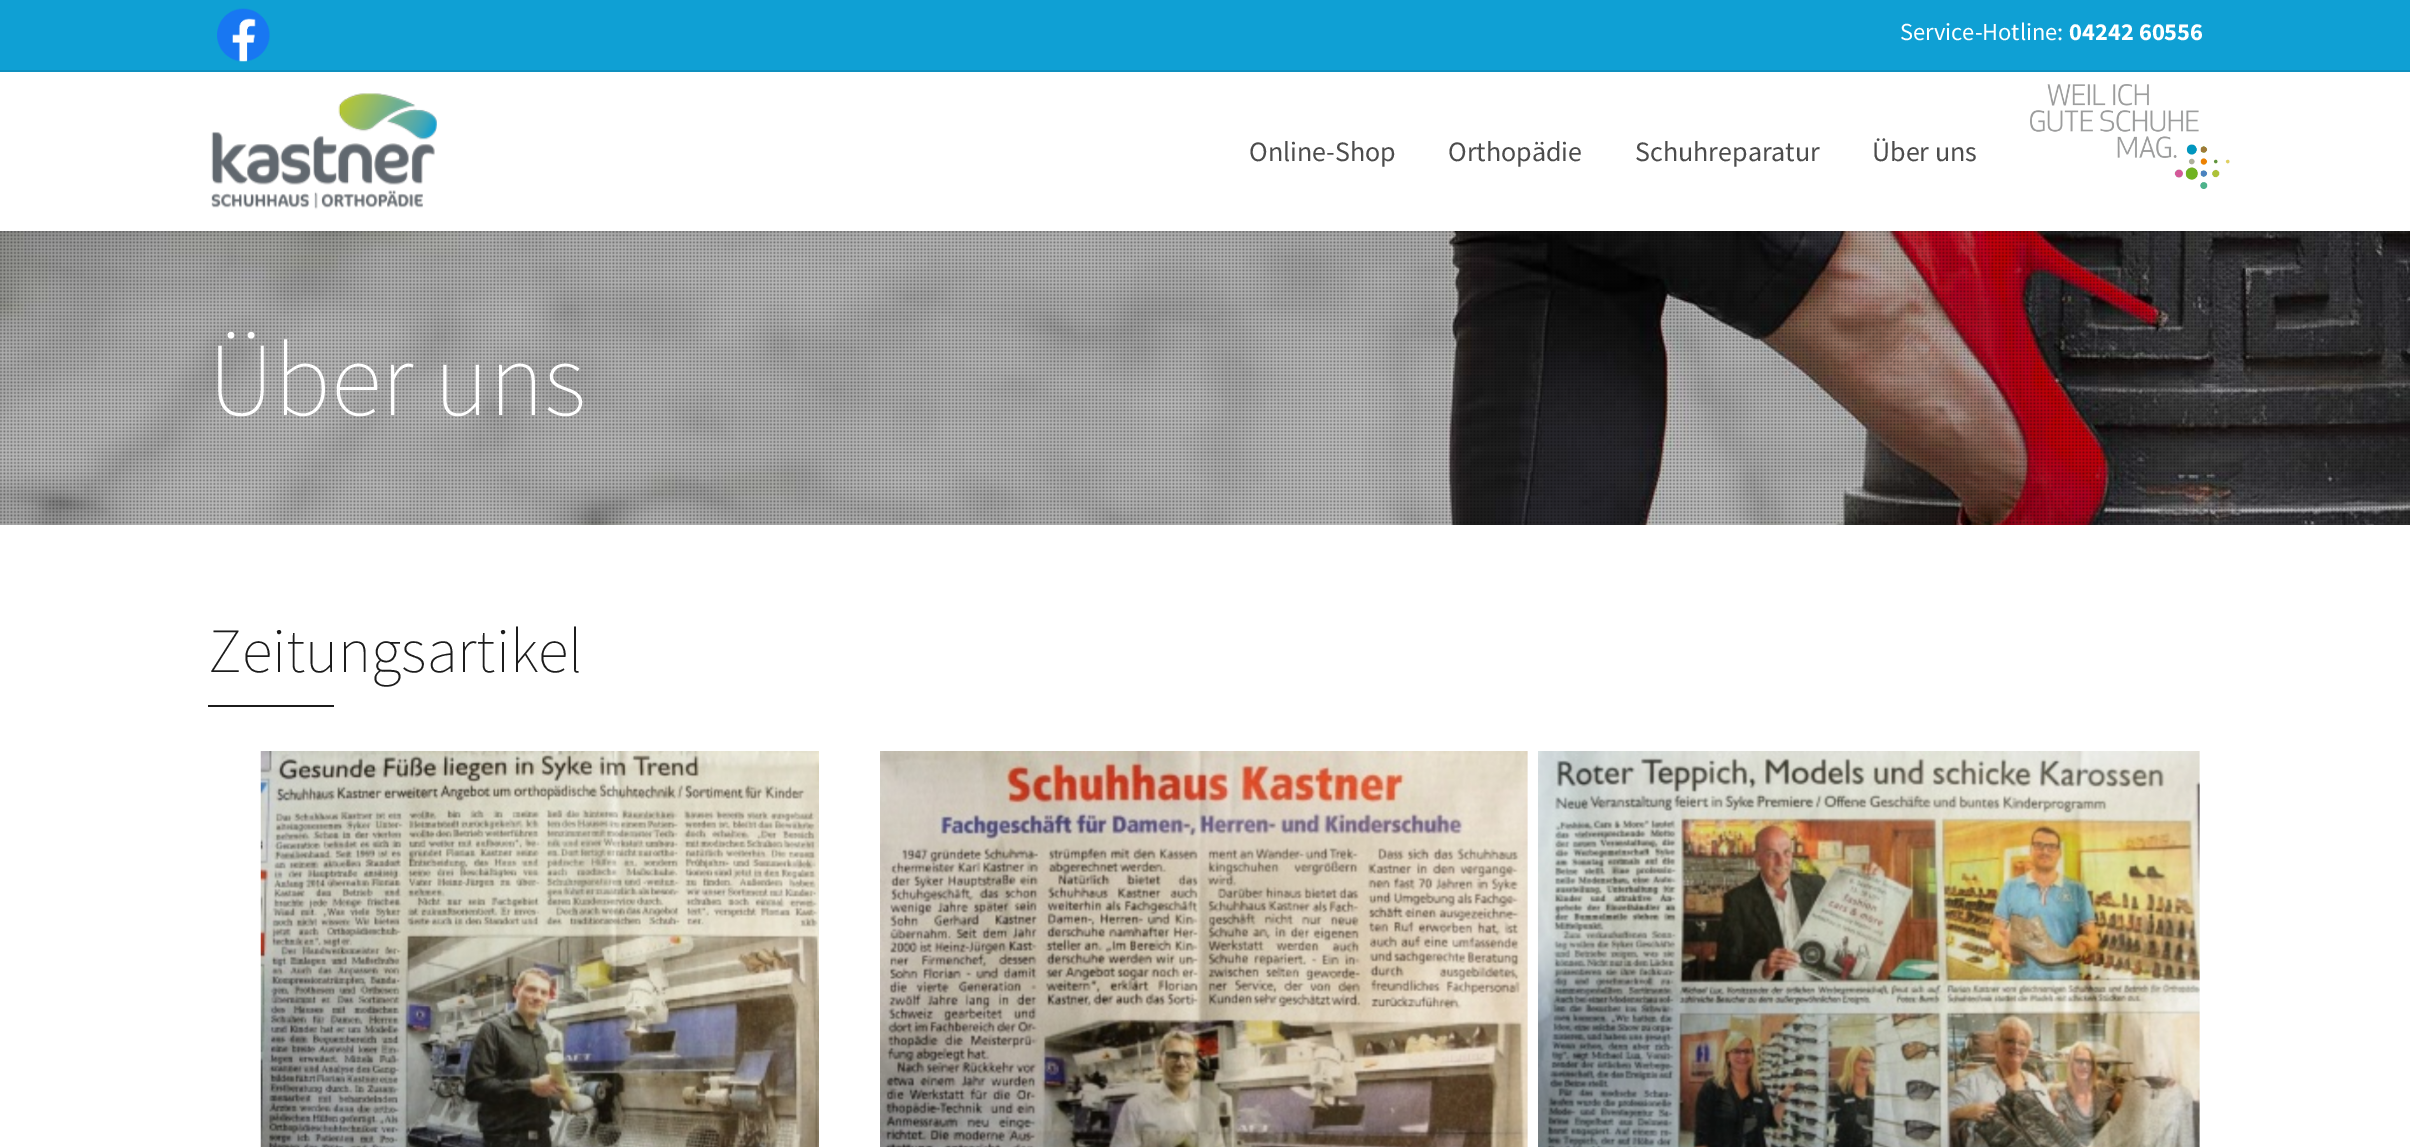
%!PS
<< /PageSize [2410 1147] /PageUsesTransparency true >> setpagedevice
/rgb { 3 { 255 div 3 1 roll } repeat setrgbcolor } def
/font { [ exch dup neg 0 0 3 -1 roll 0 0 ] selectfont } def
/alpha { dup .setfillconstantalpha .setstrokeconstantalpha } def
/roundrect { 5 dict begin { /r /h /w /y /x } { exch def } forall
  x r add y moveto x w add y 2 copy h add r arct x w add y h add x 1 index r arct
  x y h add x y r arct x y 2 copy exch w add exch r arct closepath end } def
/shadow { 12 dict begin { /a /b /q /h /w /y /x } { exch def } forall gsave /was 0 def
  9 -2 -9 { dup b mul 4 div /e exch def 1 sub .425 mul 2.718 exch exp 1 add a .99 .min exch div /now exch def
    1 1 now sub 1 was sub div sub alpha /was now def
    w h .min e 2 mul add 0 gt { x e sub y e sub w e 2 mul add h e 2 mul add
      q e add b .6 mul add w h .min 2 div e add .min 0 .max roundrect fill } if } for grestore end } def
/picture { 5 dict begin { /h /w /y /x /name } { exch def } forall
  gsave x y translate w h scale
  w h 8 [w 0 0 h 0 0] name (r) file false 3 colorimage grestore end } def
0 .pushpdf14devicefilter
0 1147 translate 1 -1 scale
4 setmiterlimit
255 255 255 rgb
0 0 2410 1147 rectfill
15 160 212 rgb
0 0 2410 70 rectfill
14 144 191 rgb
0 70 2410 2 rectfill
(img/1.rgb) 217 8 53 54 picture
(img/4.rgb) 0 231 2410 294 picture
(img/5.rgb) 0 231 2410 294 picture
gsave
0 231 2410 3 rectclip
0 0 0 rgb
0 74 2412 159 0 1 0.1 shadow
grestore
(img/2.rgb) 211 93 226 117 picture
(img/3.rgb) 2030 84 200 105 picture
28 28 28 rgb
208 705 126 2 rectfill
(img/6.rgb) 260 751 559 396 picture
(img/7.rgb) 880 751 648 396 picture
(img/8.rgb) 1538 751 662 396 picture
/SourceSansPro-Regular 24.5 font
255 255 255 rgb
1900 40 moveto (Service-Hotline:) show
/SourceSansPro-Bold 24.5 font
2069 40 moveto (04242 60556) show
/SourceSansPro-Regular 28 font
76 76 76 rgb
[
  [(Online-Shop) 1249 161]
  [(Orthopädie) 1448 161]
  [(Schuhreparatur) 1635 161]
  [(Über uns) 1872 161]
] { aload pop moveto show } forall
/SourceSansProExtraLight-ExtraLight 105 font
255 255 255 rgb
208 415 moveto (Über uns) show
/SourceSansProExtraLight-ExtraLight 63 font
28 28 28 rgb
208 672 moveto (Zeitungsartikel) show
.poppdf14devicefilter showpage
